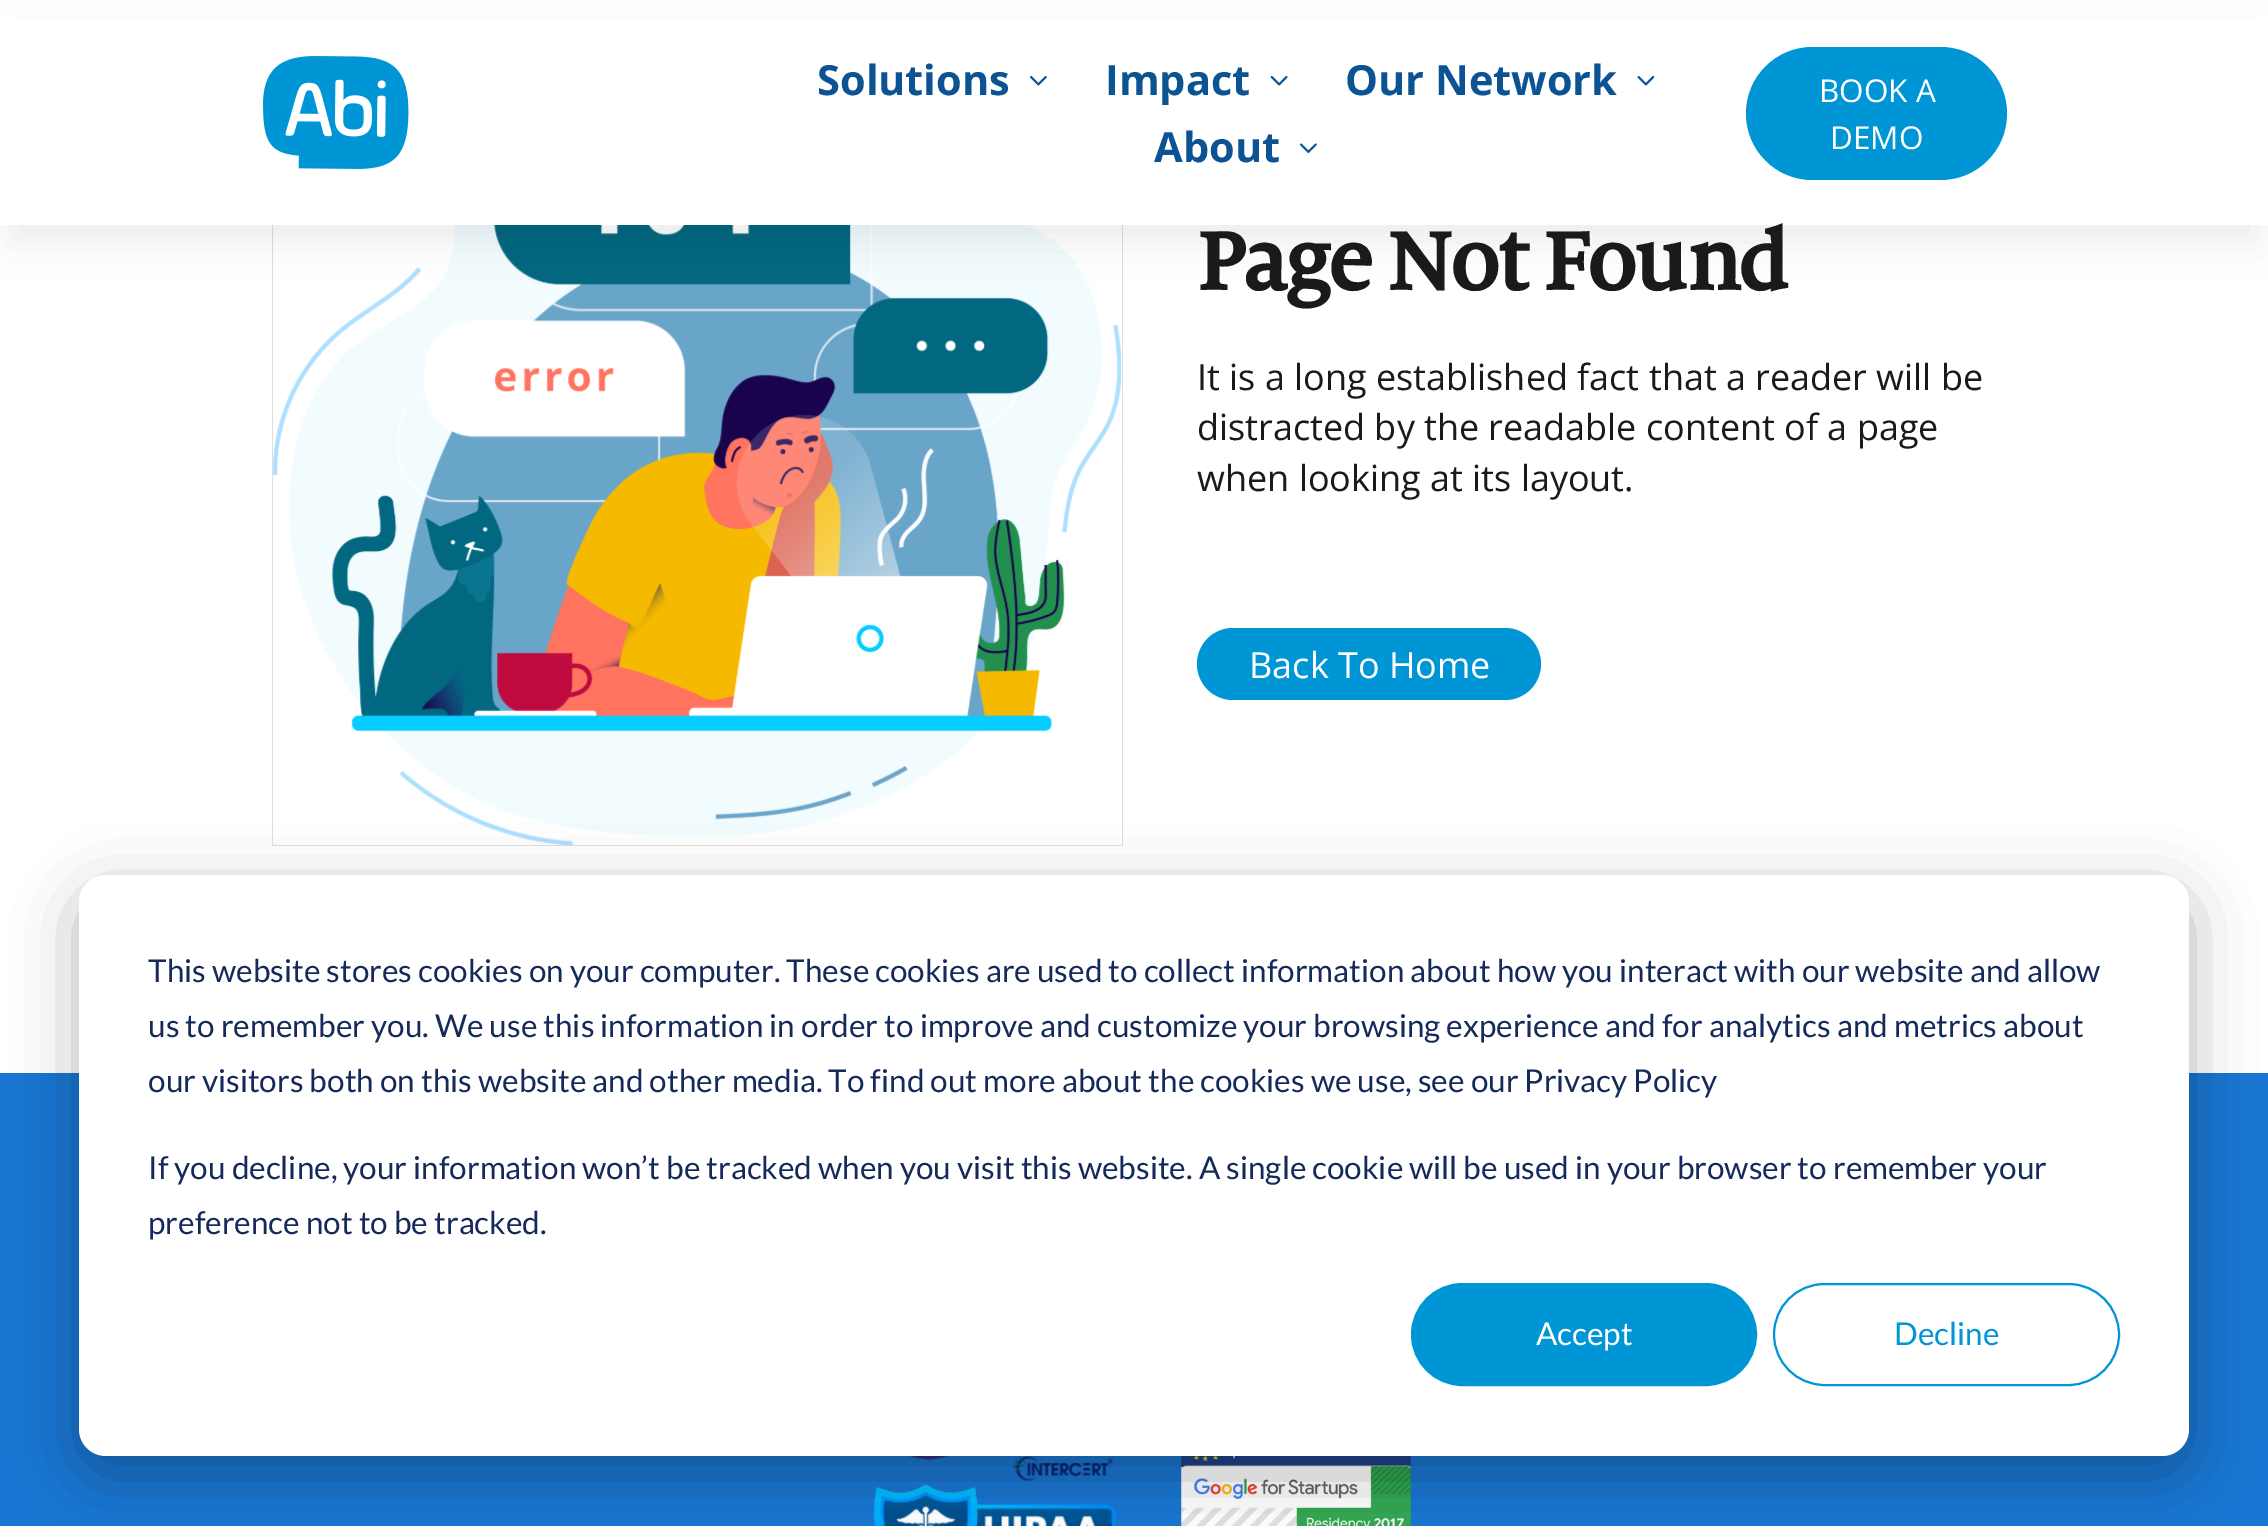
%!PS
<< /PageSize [2268 1526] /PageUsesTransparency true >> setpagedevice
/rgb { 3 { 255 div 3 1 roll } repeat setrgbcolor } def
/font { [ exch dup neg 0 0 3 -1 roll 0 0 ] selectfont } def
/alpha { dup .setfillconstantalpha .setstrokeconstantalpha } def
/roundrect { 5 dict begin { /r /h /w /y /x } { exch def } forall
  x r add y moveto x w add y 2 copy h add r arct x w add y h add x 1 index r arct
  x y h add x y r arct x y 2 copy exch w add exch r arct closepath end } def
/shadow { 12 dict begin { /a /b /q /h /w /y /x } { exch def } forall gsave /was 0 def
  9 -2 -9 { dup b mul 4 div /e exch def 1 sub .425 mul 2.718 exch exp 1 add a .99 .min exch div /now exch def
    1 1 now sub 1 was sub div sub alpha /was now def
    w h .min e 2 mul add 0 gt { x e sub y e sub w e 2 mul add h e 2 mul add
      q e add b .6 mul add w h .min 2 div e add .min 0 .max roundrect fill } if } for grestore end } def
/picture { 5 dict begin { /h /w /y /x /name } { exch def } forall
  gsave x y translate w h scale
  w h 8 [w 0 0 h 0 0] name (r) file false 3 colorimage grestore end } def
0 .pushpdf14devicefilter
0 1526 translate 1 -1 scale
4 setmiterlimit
255 255 255 rgb
0 0 2268 1526 rectfill
(img/6.rgb) 272 225 851 621 picture
0 0 0 rgb
14 41 2241 198 0 20 0.08 shadow
255 255 255 rgb
0 18 2268 207 rectfill
(img/1.rgb) 262 56 147 113 picture
(img/2.rgb) 1030 76 17 10 picture
(img/3.rgb) 1270 76 18 10 picture
(img/4.rgb) 1637 76 18 10 picture
(img/5.rgb) 1300 143 17 10 picture
0 150 214 rgb
1746 47 261 133 66.5 roundrect fill
1197 628 344 72 36 roundrect fill
25 118 210 rgb
0 1073 2268 453 rectfill
(img/7.rgb) 873 1456 244 70 picture
(img/8.rgb) 1181 1456 230 70 picture
0 0 0 rgb
79 893 2110 581 27 31.5 0.28 shadow
255 255 255 rgb
79 875 2110 581 27 roundrect fill
0 150 214 rgb
1412 1284 344 101 50.5 roundrect gsave fill grestore
2 setlinewidth
stroke
1774 1284 345 101 50.5 roundrect stroke
/OpenSans-Bold 41.5 font
12 83 148 rgb
[
  [(Solutions) 817 95]
  [(Impact) 1105 95]
  [(Our Network) 1345 95]
  [(About) 1154 162]
] { aload pop moveto show } forall
/OpenSans-Regular 31.5 font
255 255 255 rgb
1819 102 moveto (BOOK A) show
1830 149 moveto (DEMO) show
/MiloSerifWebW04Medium-Bold 90 font
26 26 26 rgb
1197 290 moveto -2.25 0 (Page Not Found) ashow
/OpenSans-Regular 36 font
[
  [(It is a long established fact that a reader will be) 1197 390]
  [(distracted by the readable content of a page) 1197 440]
  [(when looking at its layout.) 1197 491]
] { aload pop moveto show } forall
255 255 255 rgb
1249 678 moveto (Back To Home) show
/Lato-Regular 31.5 font
21 41 90 rgb
[
  [(This website stores cookies on your computer. These cookies are used to collect information about how you interact with our website and allow) 148 982]
  [(us to remember you. We use this information in order to improve and customize your browsing experience and for analytics and metrics about) 148 1037]
  [(our visitors both on this website and other media. To find out more about the cookies we use, see our Privacy Policy) 148 1092]
  [(If you decline, your information won’t be tracked when you visit this website. A single cookie will be used in your browser to remember your) 148 1179]
  [(preference not to be tracked.) 148 1234]
] { aload pop moveto show } forall
255 255 255 rgb
1536 1345 moveto (Accept) show
0 150 214 rgb
1894 1345 moveto (Decline) show
.poppdf14devicefilter showpage
